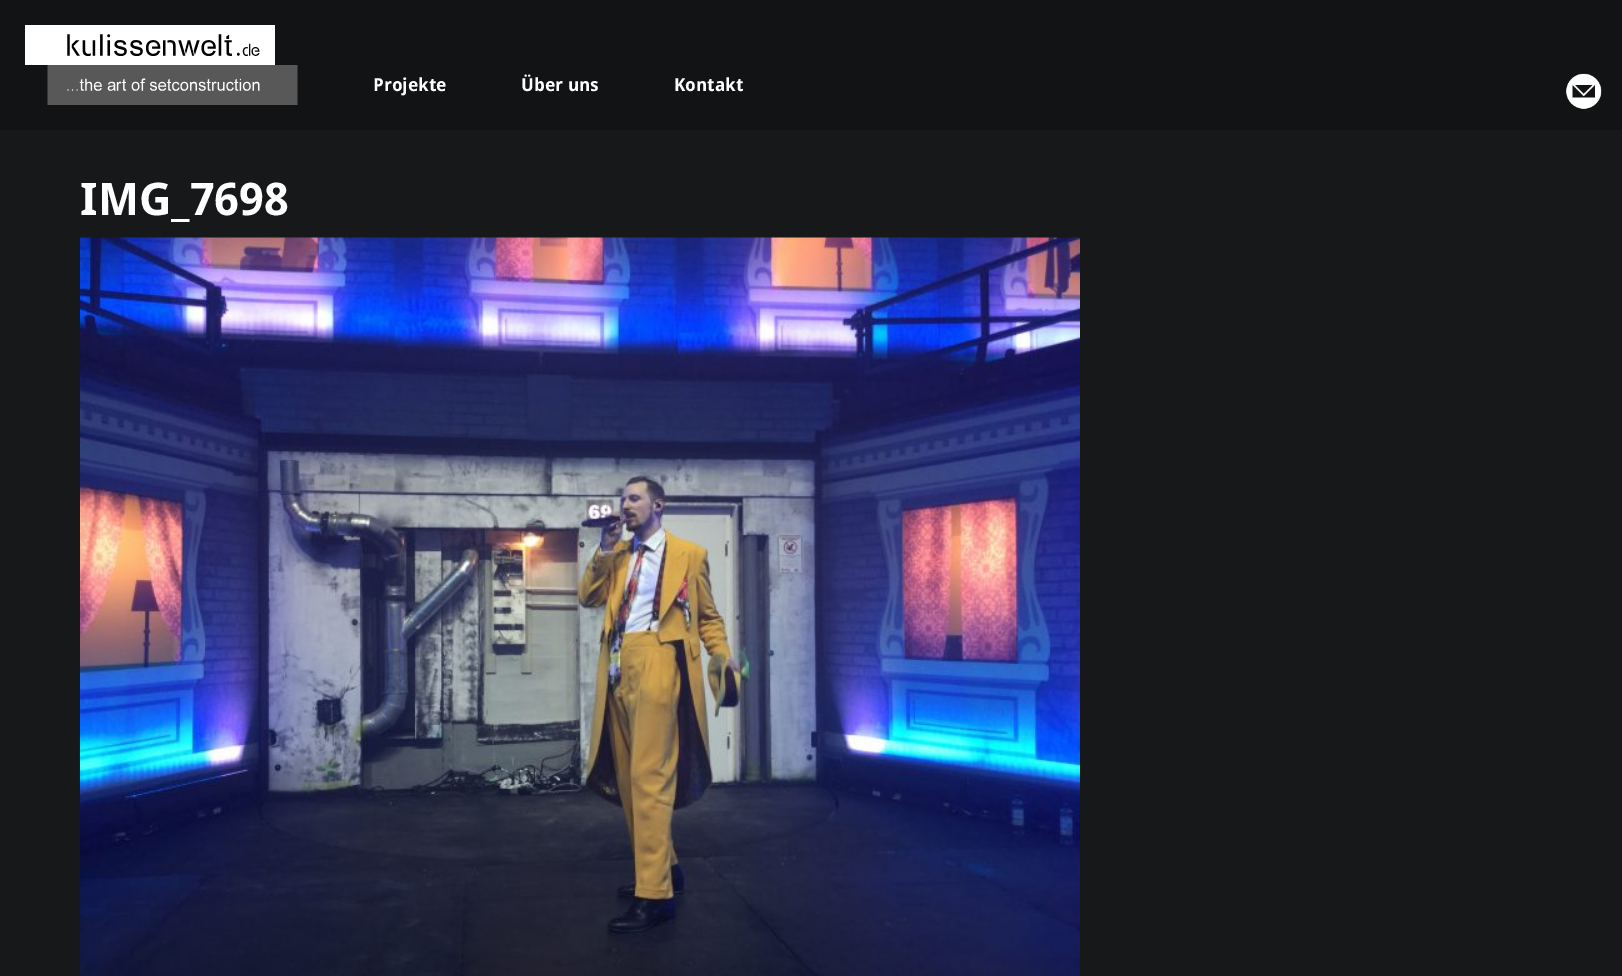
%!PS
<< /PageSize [1622 976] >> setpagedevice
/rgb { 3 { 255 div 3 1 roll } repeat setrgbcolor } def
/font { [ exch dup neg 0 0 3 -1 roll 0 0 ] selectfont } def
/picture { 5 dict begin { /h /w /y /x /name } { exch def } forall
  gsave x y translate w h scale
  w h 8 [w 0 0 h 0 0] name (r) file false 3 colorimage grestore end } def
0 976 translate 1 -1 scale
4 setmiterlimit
23 24 25 rgb
0 0 1622 976 rectfill
18 19 20 rgb
0 0 1622 130 rectfill
(img/1.rgb) 25 25 273 80 picture
(img/2.rgb) 1566 73 36 36 picture
(img/3.rgb) 80 237 1000 739 picture
/DroidSans-Bold 18 font
255 255 255 rgb
[
  [(Projekte) 373 91]
  [(Über uns) 521 91]
  [(Kontakt) 674 91]
] { aload pop moveto show } forall
/DroidSans-Bold 45 font
80 215 moveto (IMG_7698) show
showpage
